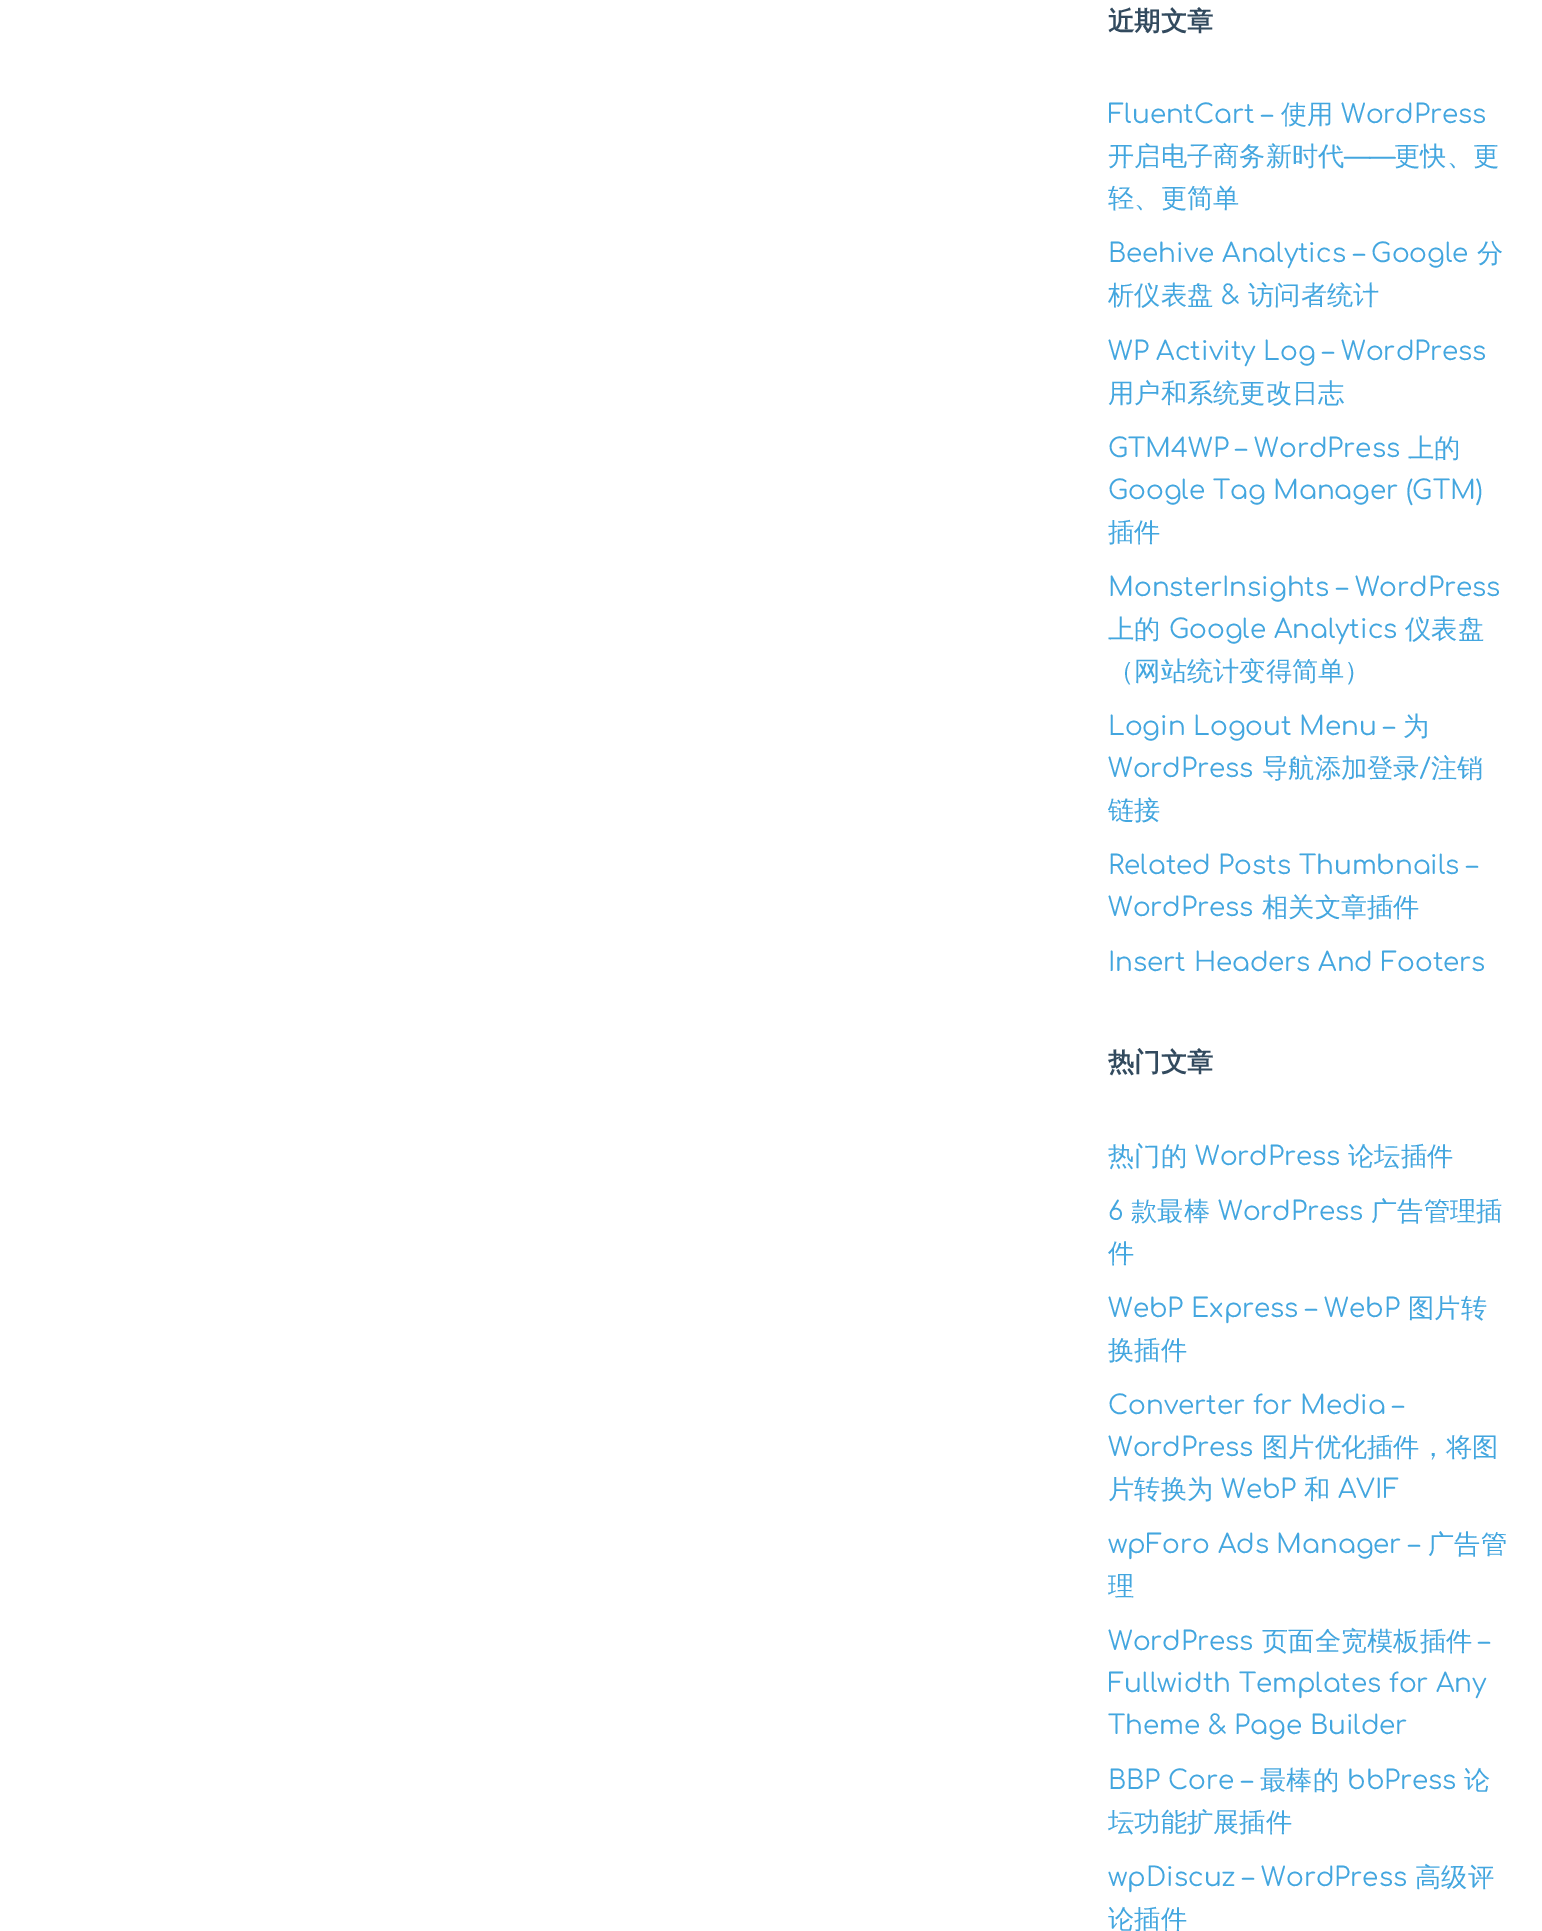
%!PS
<< /PageSize [1542 1931] >> setpagedevice
/rgb { 3 { 255 div 3 1 roll } repeat setrgbcolor } def
/font { [ exch dup neg 0 0 3 -1 roll 0 0 ] selectfont } def
0 1931 translate 1 -1 scale
4 setmiterlimit
255 255 255 rgb
0 0 1542 1931 rectfill
/WenQuanYiZenHei-Bold 26.25 font
50 74 94 rgb
1108 30 moveto (近期文章) show
/Comfortaa-Regular 26.25 font
67 166 223 rgb
1108 123 moveto (FluentCart –) show
/WenQuanYiZenHei-Medium 26.25 font
1281 123 moveto (使用) show
/Comfortaa-Regular 26.25 font
1341 123 moveto (WordPress) show
/WenQuanYiZenHei-Medium 26.25 font
1108 165 moveto (开启电子商务新时代) show
/Comfortaa-Regular 26.25 font
1345 165 moveto (——) show
/WenQuanYiZenHei-Medium 26.25 font
1394 165 moveto (更快、更) show
1108 207 moveto (轻、更简单) show
/Comfortaa-Regular 26.25 font
1108 262 moveto (Beehive Analytics – Google) show
/WenQuanYiZenHei-Medium 26.25 font
1477 262 moveto (分) show
1108 304 moveto (析仪表盘) show
/Comfortaa-Regular 26.25 font
1221 304 moveto (&) show
/WenQuanYiZenHei-Medium 26.25 font
1248 304 moveto (访问者统计) show
/Comfortaa-Regular 26.25 font
1108 360 moveto (WP Activity Log – WordPress) show
/WenQuanYiZenHei-Medium 26.25 font
1108 402 moveto (用户和系统更改日志) show
/Comfortaa-Regular 26.25 font
1108 457 moveto (GTM4WP – WordPress) show
/WenQuanYiZenHei-Medium 26.25 font
1408 457 moveto (上的) show
/Comfortaa-Regular 26.25 font
1108 499 moveto (Google Tag Manager \(GTM\)) show
/WenQuanYiZenHei-Medium 26.25 font
1108 541 moveto (插件) show
/Comfortaa-Regular 26.25 font
1108 596 moveto (MonsterInsights – WordPress) show
/WenQuanYiZenHei-Medium 26.25 font
1108 638 moveto (上的) show
/Comfortaa-Regular 26.25 font
1169 638 moveto (Google Analytics) show
/WenQuanYiZenHei-Medium 26.25 font
1405 638 moveto (仪表盘) show
1108 680 moveto (（网站统计变得简单）) show
/Comfortaa-Regular 26.25 font
1108 735 moveto (Login Logout Menu –) show
/WenQuanYiZenHei-Medium 26.25 font
1403 735 moveto (为) show
/Comfortaa-Regular 26.25 font
1108 777 moveto (WordPress) show
/WenQuanYiZenHei-Medium 26.25 font
1262 777 moveto (导航添加登录) show
/Comfortaa-Regular 26.25 font
1419 777 moveto (/) show
/WenQuanYiZenHei-Medium 26.25 font
1431 777 moveto (注销) show
1108 819 moveto (链接) show
/Comfortaa-Regular 26.25 font
1108 874 moveto (Related Posts Thumbnails –) show
1108 916 moveto (WordPress) show
/WenQuanYiZenHei-Medium 26.25 font
1262 916 moveto (相关文章插件) show
/Comfortaa-Regular 26.25 font
1108 971 moveto (Insert Headers And Footers) show
/WenQuanYiZenHei-Bold 26.25 font
50 74 94 rgb
1108 1071 moveto (热门文章) show
/WenQuanYiZenHei-Medium 26.25 font
67 166 223 rgb
1108 1165 moveto (热门的) show
/Comfortaa-Regular 26.25 font
1195 1165 moveto (WordPress) show
/WenQuanYiZenHei-Medium 26.25 font
1348 1165 moveto (论坛插件) show
/Comfortaa-Regular 26.25 font
1108 1220 moveto (6) show
/WenQuanYiZenHei-Medium 26.25 font
1131 1220 moveto (款最棒) show
/Comfortaa-Regular 26.25 font
1218 1220 moveto (WordPress) show
/WenQuanYiZenHei-Medium 26.25 font
1371 1220 moveto (广告管理插) show
1108 1262 moveto (件) show
/Comfortaa-Regular 26.25 font
1108 1317 moveto (WebP Express – WebP) show
/WenQuanYiZenHei-Medium 26.25 font
1408 1317 moveto (图片转) show
1108 1359 moveto (换插件) show
/Comfortaa-Regular 26.25 font
1108 1414 moveto (Converter for Media –) show
1108 1456 moveto (WordPress) show
/WenQuanYiZenHei-Medium 26.25 font
1262 1456 moveto (图片优化插件，将图) show
1108 1498 moveto (片转换为) show
/Comfortaa-Regular 26.25 font
1221 1498 moveto (WebP) show
/WenQuanYiZenHei-Medium 26.25 font
1304 1498 moveto (和) show
/Comfortaa-Regular 26.25 font
1338 1498 moveto (AVIF) show
1108 1553 moveto (wpForo Ads Manager –) show
/WenQuanYiZenHei-Medium 26.25 font
1428 1553 moveto (广告管) show
1108 1595 moveto (理) show
/Comfortaa-Regular 26.25 font
1108 1650 moveto (WordPress) show
/WenQuanYiZenHei-Medium 26.25 font
1262 1650 moveto (页面全宽模板插件) show
/Comfortaa-Regular 26.25 font
[
  [(–) 1479 1650]
  [(Fullwidth Templates for Any) 1108 1692]
  [(Theme & Page Builder) 1108 1734]
  [(BBP Core –) 1108 1789]
] { aload pop moveto show } forall
/WenQuanYiZenHei-Medium 26.25 font
1260 1789 moveto (最棒的) show
/Comfortaa-Regular 26.25 font
1347 1789 moveto (bbPress) show
/WenQuanYiZenHei-Medium 26.25 font
1464 1789 moveto (论) show
1108 1831 moveto (坛功能扩展插件) show
/Comfortaa-Regular 26.25 font
1108 1886 moveto (wpDiscuz – WordPress) show
/WenQuanYiZenHei-Medium 26.25 font
1415 1886 moveto (高级评) show
1108 1928 moveto (论插件) show
showpage
